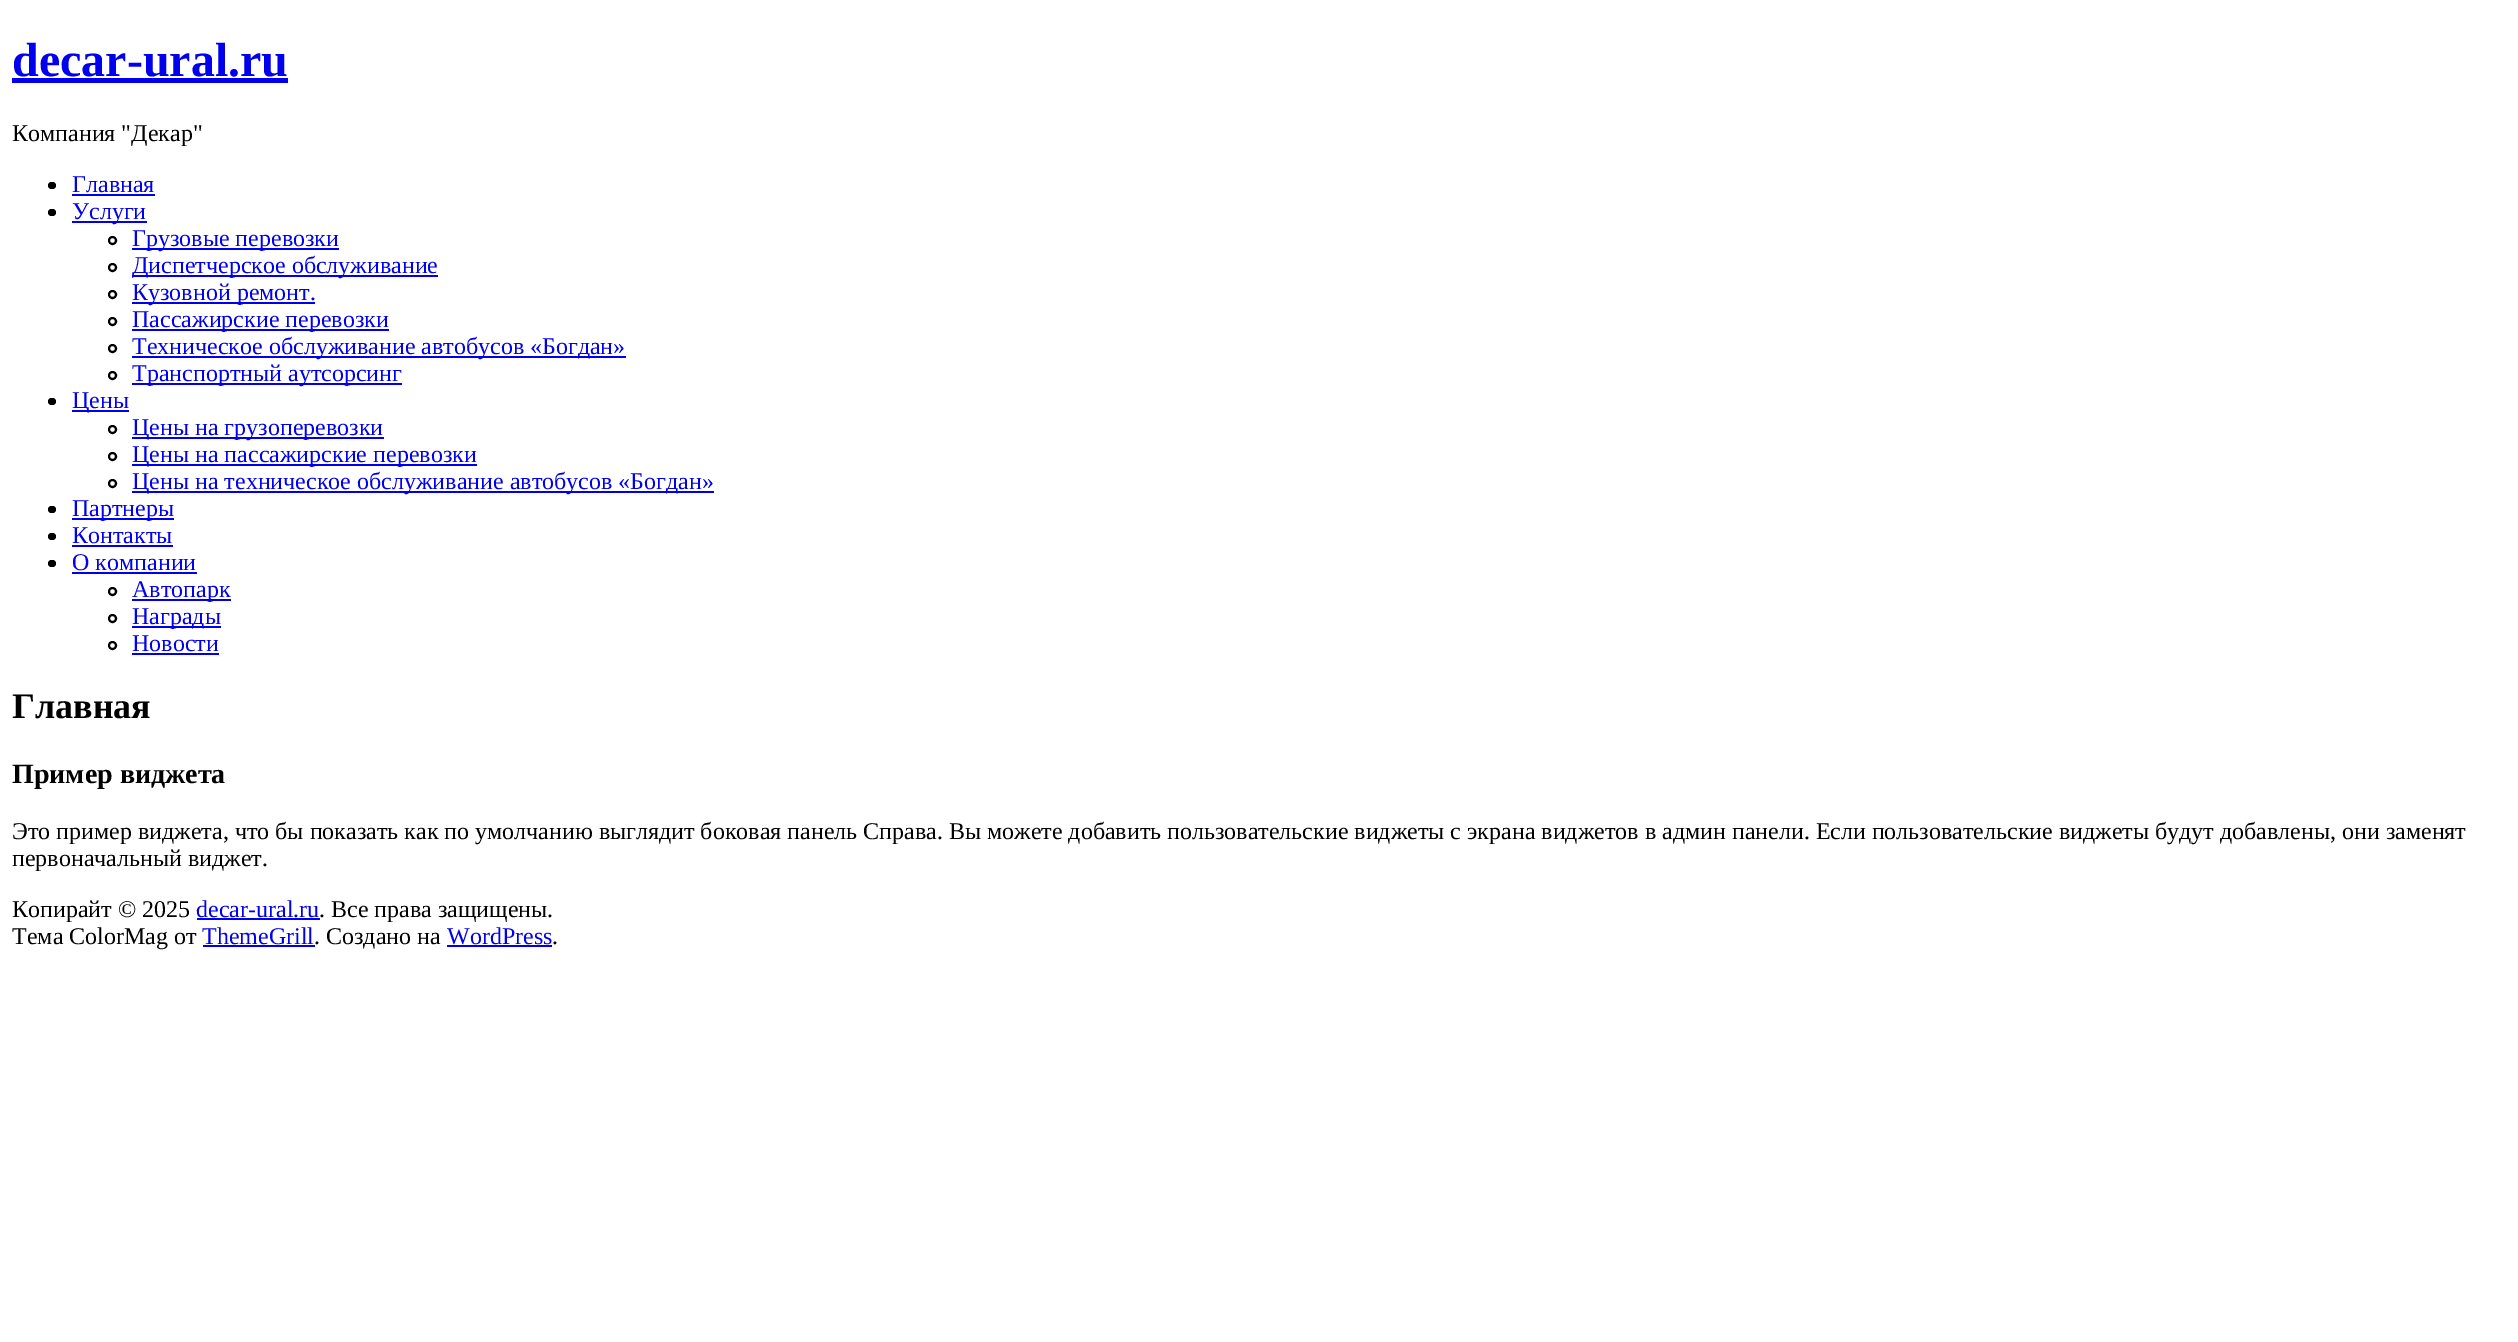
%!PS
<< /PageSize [2518 1342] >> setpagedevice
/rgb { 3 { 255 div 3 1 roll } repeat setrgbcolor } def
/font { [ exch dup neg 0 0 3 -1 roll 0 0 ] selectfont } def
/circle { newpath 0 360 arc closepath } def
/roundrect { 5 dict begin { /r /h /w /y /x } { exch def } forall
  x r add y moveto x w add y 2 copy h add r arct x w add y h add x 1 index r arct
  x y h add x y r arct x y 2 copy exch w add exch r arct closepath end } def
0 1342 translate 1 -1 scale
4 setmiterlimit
255 255 255 rgb
0 0 2518 1342 rectfill
0 0 238 rgb
12 78 276 5 rectfill
0 0 0 rgb
48 182 8 7 3.5 roundrect fill
0 0 238 rgb
72 194 83 2 rectfill
0 0 0 rgb
48 209 8 7 3.5 roundrect fill
0 0 238 rgb
72 221 75 2 rectfill
0 0 0 rgb
2 setlinewidth
112.5 240.5 3.5 circle stroke
0 0 238 rgb
132 248 207 2 rectfill
0 0 0 rgb
112.5 267.5 3.5 circle stroke
0 0 238 rgb
132 275 306 2 rectfill
0 0 0 rgb
112.5 294.5 3.5 circle stroke
0 0 238 rgb
132 302 183 2 rectfill
0 0 0 rgb
112.5 321.5 3.5 circle stroke
0 0 238 rgb
132 329 257 2 rectfill
0 0 0 rgb
112.5 348.5 3.5 circle stroke
0 0 238 rgb
132 356 494 2 rectfill
0 0 0 rgb
112.5 375.5 3.5 circle stroke
0 0 238 rgb
132 383 270 2 rectfill
0 0 0 rgb
48 398 8 7 3.5 roundrect fill
0 0 238 rgb
72 410 57 2 rectfill
0 0 0 rgb
112.5 429.5 3.5 circle stroke
0 0 238 rgb
132 437 252 2 rectfill
0 0 0 rgb
112.5 456.5 3.5 circle stroke
0 0 238 rgb
132 464 345 2 rectfill
0 0 0 rgb
112.5 483.5 3.5 circle stroke
0 0 238 rgb
132 491 582 2 rectfill
0 0 0 rgb
48 506 8 7 3.5 roundrect fill
0 0 238 rgb
72 518 102 2 rectfill
0 0 0 rgb
48 533 8 7 3.5 roundrect fill
0 0 238 rgb
72 545 101 2 rectfill
0 0 0 rgb
48 560 8 7 3.5 roundrect fill
0 0 238 rgb
72 572 125 2 rectfill
0 0 0 rgb
112.5 591.5 3.5 circle stroke
0 0 238 rgb
132 599 99 2 rectfill
0 0 0 rgb
112.5 618.5 3.5 circle stroke
0 0 238 rgb
132 626 89 2 rectfill
0 0 0 rgb
112.5 645.5 3.5 circle stroke
[
  [132 653 87 2 0 0 238]
  [197 918 123 2 0 0 238]
  [203 945 112 2 0 0 238]
  [447 945 105 2 0 0 238]
] { aload pop rgb rectfill } forall
/LiberationSerif-Bold 48 font
12 76 moveto (decar-ural.ru) show
/LiberationSerif-Regular 24 font
0 0 0 rgb
12 141 moveto (Компания "Декар") show
0 0 238 rgb
[
  [(Главная) 72 192]
  [(Услуги) 72 219]
  [(Грузовые перевозки) 132 246]
  [(Диспетчерское обслуживание) 132 273]
  [(Кузовной ремонт.) 132 300]
  [(Пассажирские перевозки) 132 327]
  [(Техническое обслуживание автобусов «Богдан») 132 354]
  [(Транспортный аутсорсинг) 132 381]
  [(Цены) 72 408]
  [(Цены на грузоперевозки) 132 435]
  [(Цены на пассажирские перевозки) 132 462]
  [(Цены на техническое обслуживание автобусов «Богдан») 132 489]
  [(Партнеры) 72 516]
  [(Контакты) 72 543]
  [(О компании) 72 570]
  [(Автопарк) 132 597]
  [(Награды) 132 624]
  [(Новости) 132 651]
] { aload pop moveto show } forall
/LiberationSerif-Bold 36 font
0 0 0 rgb
12 718 moveto (Главная) show
/LiberationSerif-Bold 28 font
12 783 moveto (Пример виджета) show
/LiberationSerif-Regular 24 font
[
  [(Это пример виджета, что бы показать как по умолчанию выглядит боковая панель Справа. Вы можете добавить пользовательские виджеты с экрана виджетов в админ панели. Если пользовательские виджеты будут добавлены, они заменят) 12 839]
  [(первоначальный виджет.) 12 866]
  [(Копирайт © 2025) 12 917]
] { aload pop moveto show } forall
0 0 238 rgb
196 917 moveto (decar-ural.ru) show
0 0 0 rgb
319 917 moveto (. Все права защищены.) show
12 944 moveto (Тема ColorMag от) show
0 0 238 rgb
202 944 moveto (ThemeGrill) show
0 0 0 rgb
314 944 moveto (. Создано на) show
0 0 238 rgb
447 944 moveto (WordPress) show
0 0 0 rgb
552 944 moveto (.) show
showpage
